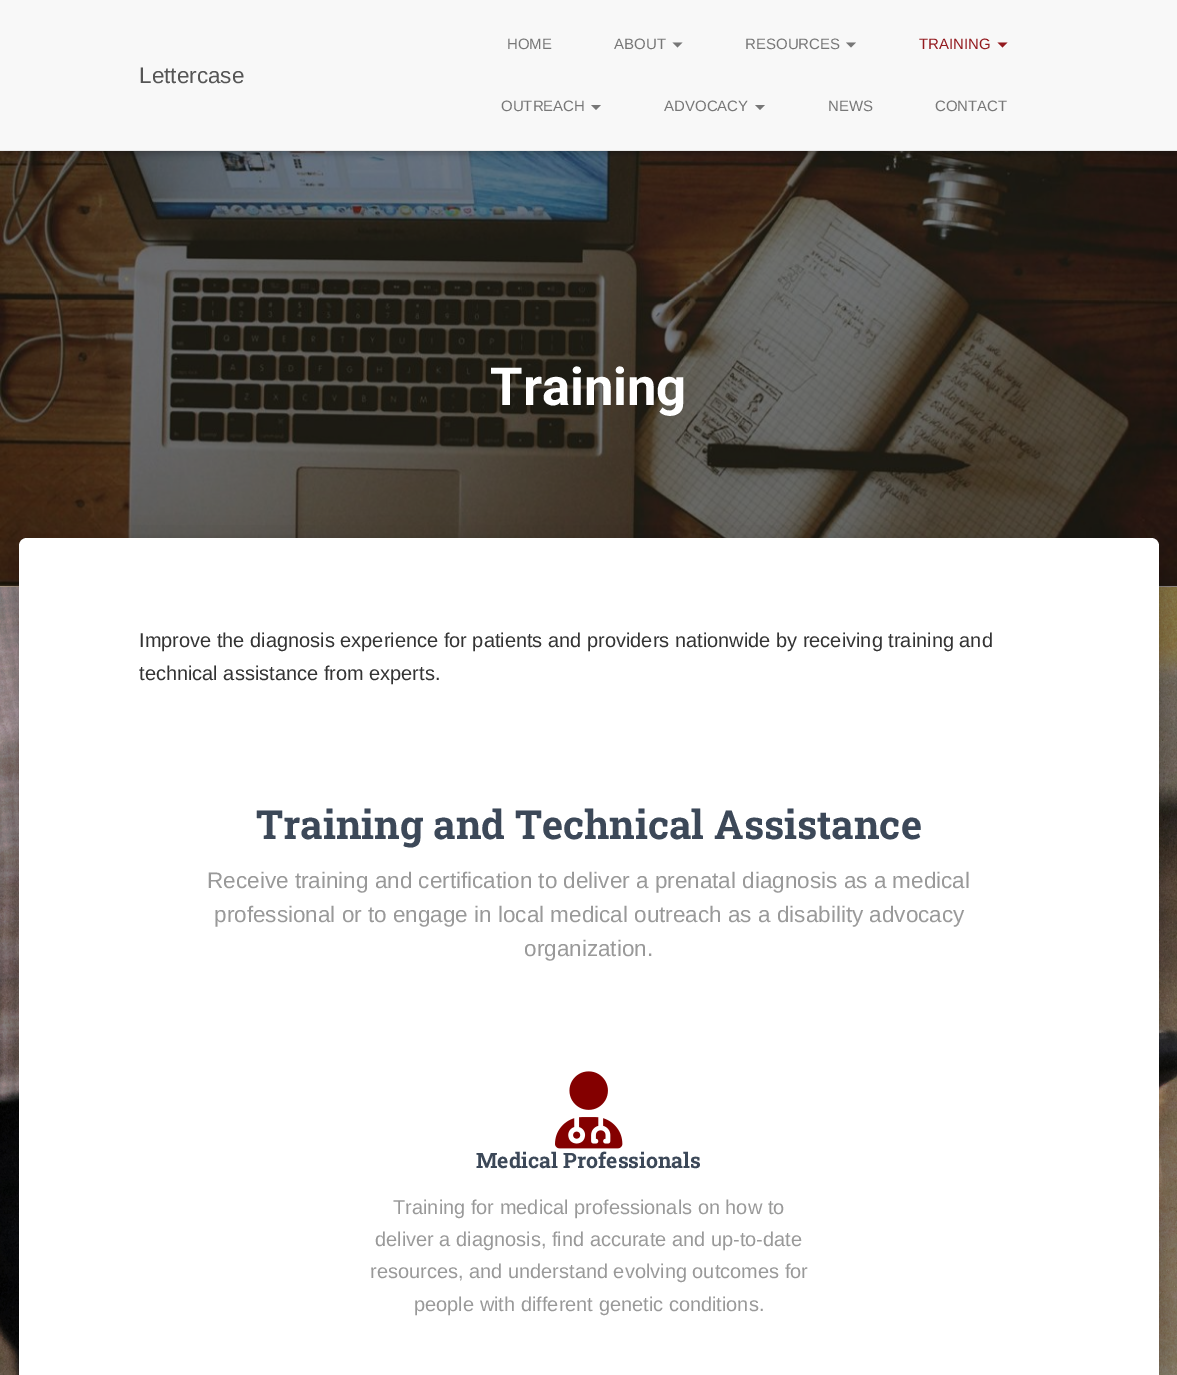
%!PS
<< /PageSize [1177 1375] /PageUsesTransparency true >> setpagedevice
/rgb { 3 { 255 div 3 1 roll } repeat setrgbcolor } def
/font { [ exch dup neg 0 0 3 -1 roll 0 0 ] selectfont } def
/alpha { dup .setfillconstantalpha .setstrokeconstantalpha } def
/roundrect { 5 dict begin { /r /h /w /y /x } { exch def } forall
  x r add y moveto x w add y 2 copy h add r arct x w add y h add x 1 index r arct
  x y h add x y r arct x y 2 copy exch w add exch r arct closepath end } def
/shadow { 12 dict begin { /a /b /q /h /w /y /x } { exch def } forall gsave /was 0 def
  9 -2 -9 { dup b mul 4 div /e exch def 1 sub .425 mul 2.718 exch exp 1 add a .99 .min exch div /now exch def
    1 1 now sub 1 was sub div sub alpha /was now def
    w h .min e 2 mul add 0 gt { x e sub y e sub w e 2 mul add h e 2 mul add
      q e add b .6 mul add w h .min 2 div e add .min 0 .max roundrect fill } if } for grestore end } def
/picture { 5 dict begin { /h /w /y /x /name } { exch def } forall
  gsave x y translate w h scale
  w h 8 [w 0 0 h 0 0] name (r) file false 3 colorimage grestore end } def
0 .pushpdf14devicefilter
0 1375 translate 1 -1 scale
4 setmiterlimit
255 255 255 rgb
0 0 1177 1375 rectfill
(img/1.rgb) 0 585 1177 790 picture
238 238 238 rgb
0 586 1177 1 rectfill
(img/2.rgb) 0 151 1177 436 picture
0.5 alpha
0 0 0 rgb
0 151 1177 435 rectfill
1 alpha
3 8 1172 146 0 3 0.1 shadow
0 1 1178 152 0 6 0.12 shadow
8 9 1162 136 0 6 0.42 shadow
248 248 248 rgb
0 0 1177 150 rectfill
231 231 231 rgb
0 150 1177 1 rectfill
119 119 119 rgb
672.5 42.5 moveto 682.5 42.5 lineto 677.5 47.5 lineto closepath fill
846 42.5 moveto 856 42.5 lineto 851 47.5 lineto closepath fill
147 26 31 rgb
997.5 42.5 moveto 1007.5 42.5 lineto 1002.5 47.5 lineto closepath fill
119 119 119 rgb
591 105 moveto 601 105 lineto 596 110 lineto closepath fill
755 105 moveto 765 105 lineto 760 110 lineto closepath fill
0 0 0 rgb
25 554 1128 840 1 6 0.2 shadow
13 539 1152 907 14 19 0.12 shadow
16 555 1145 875 10 15 0.14 shadow
255 255 255 rgb
27 538 moveto 1151 538 lineto 1155.5 538 1159 541.5 1159 546 curveto 1159 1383 lineto 19 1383 lineto 19 546 lineto 19 541.5 22.5 538 27 538 curveto closepath fill
(img/3.rgb) 555 1071 68 78 picture
/LiberationSans-Regular 22.5 font
85 85 85 rgb
139 83 moveto (Lettercase) show
/LiberationSans-Regular 15 font
119 119 119 rgb
[
  [(HOME) 507 49]
  [(ABOUT) 614 49]
  [(RESOURCES) 745 49]
] { aload pop moveto show } forall
147 26 31 rgb
919 49 moveto (TRAINING) show
119 119 119 rgb
[
  [(OUTREACH) 501 111]
  [(ADVOCACY) 664 111]
  [(NEWS) 828 111]
  [(CONTACT) 935 111]
] { aload pop moveto show } forall
/Roboto-Bold 52.5 font
255 255 255 rgb
490 405 moveto (Training) show
/LiberationSans-Regular 20 font
51 51 51 rgb
139 647 moveto (Improve the diagnosis experience for patients and providers nationwide by receiving training and) show
139 680 moveto (technical assistance from experts.) show
/RobotoSlab-Bold 40 font
60 72 88 rgb
256 839 moveto (Training and Technical Assistance) show
/LiberationSans-Regular 22.5 font
153 153 153 rgb
[
  [(Receive training and certification to deliver a prenatal diagnosis as a medical) 207 888]
  [(professional or to engage in local medical outreach as a disability advocacy) 214 922]
  [(organization.) 524 956]
] { aload pop moveto show } forall
/RobotoSlab-Bold 21.25 font
60 72 88 rgb
476 1168 moveto (Medical Professionals) show
/LiberationSans-Regular 20 font
153 153 153 rgb
[
  [(Training for medical professionals on how to) 393 1214]
  [(deliver a diagnosis, find accurate and up-to-date) 375 1246]
  [(resources, and understand evolving outcomes for) 370 1278]
  [(people with different genetic conditions.) 414 1311]
] { aload pop moveto show } forall
.poppdf14devicefilter showpage
